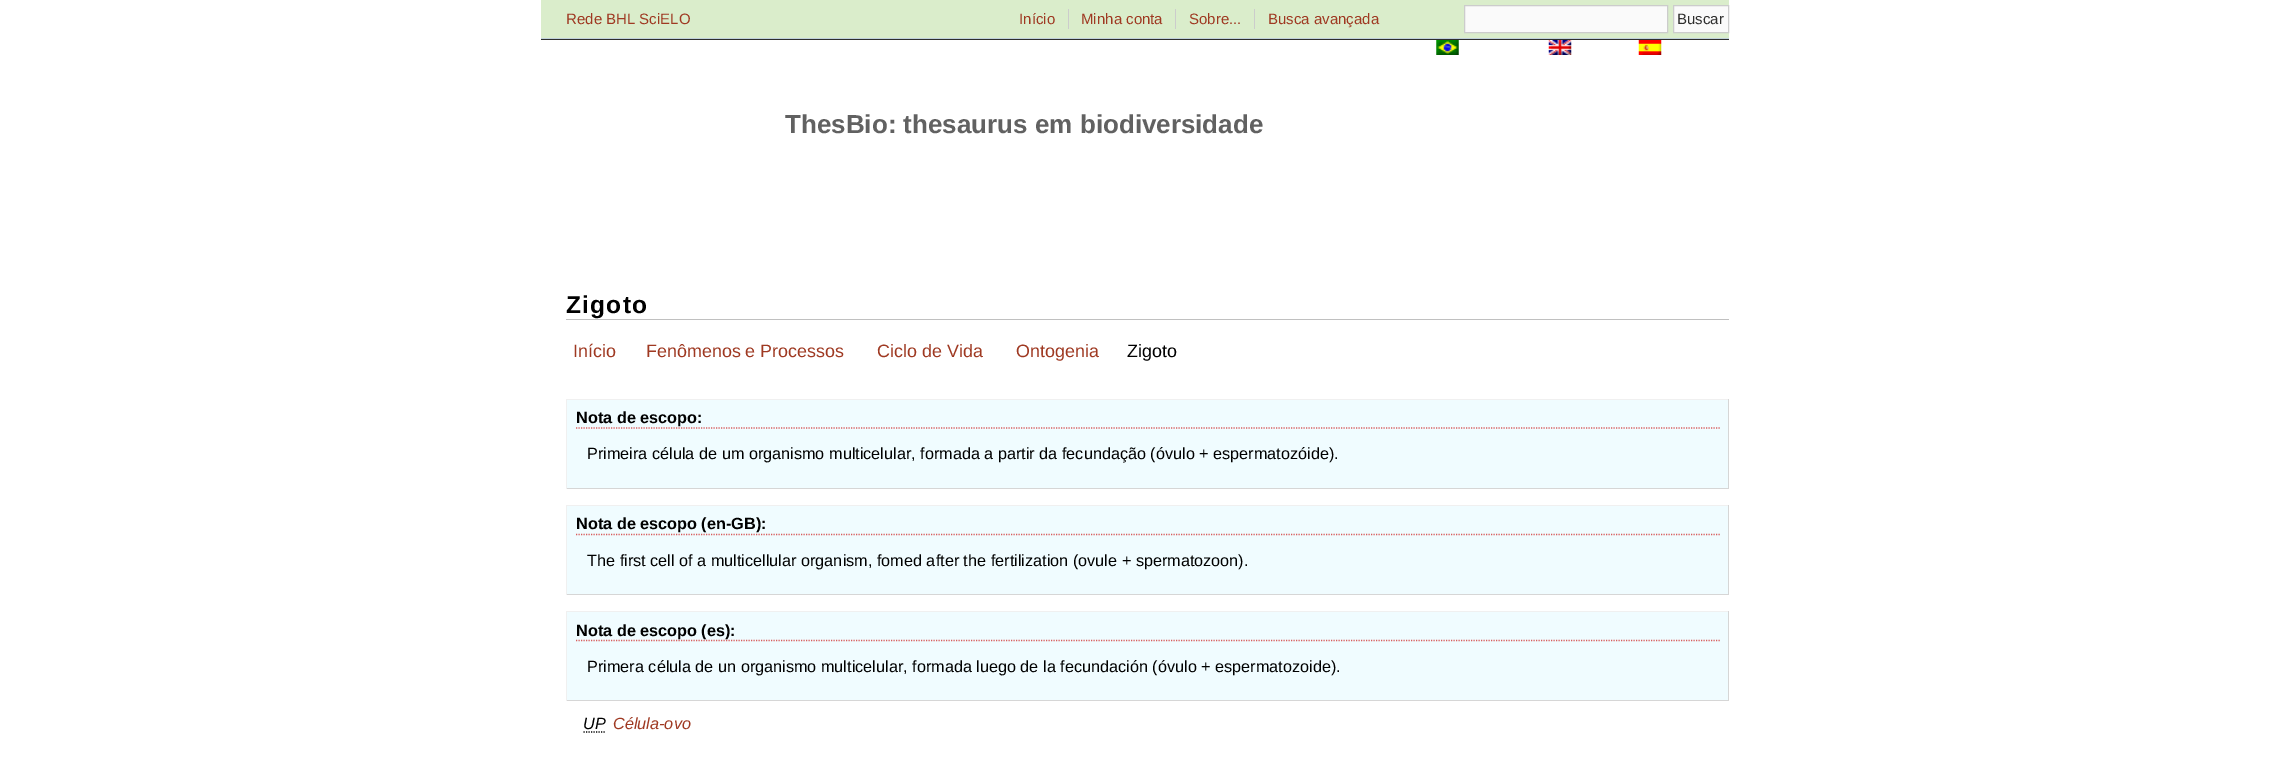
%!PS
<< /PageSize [2269 760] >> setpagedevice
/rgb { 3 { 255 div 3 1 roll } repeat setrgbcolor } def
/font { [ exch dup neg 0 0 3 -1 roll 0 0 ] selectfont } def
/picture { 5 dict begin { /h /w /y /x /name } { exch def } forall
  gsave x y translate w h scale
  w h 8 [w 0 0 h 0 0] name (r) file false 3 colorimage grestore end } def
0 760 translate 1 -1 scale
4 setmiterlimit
255 255 255 rgb
0 0 2269 760 rectfill
[
  [541 0 1188 38 218 237 203]
  [541 38 1188 1 192 209 219]
  [1068 9 1 20 204 204 204]
  [1175 9 1 20 204 204 204]
  [1254 9 1 20 204 204 204]
] { aload pop rgb rectfill } forall
250 250 250 rgb
1464.5 5.5 moveto 1667.5 5.5 lineto 1667.5 32.5 lineto 1464.5 32.5 lineto closepath gsave fill grestore
204 204 204 rgb
stroke
250 250 250 rgb
1673.5 5.5 moveto 1728.5 5.5 lineto 1728.5 32.5 lineto 1673.5 32.5 lineto closepath gsave fill grestore
204 204 204 rgb
stroke
47 47 46 rgb
541 39 1188 1 rectfill
(img/1.rgb) 1436 40 23 15 picture
(img/2.rgb) 1548 40 24 15 picture
(img/3.rgb) 1638 40 24 15 picture
[
  [566 319 1163 1 192 192 192]
  [567 400 1161 88 240 252 255]
  [566 399 1163 1 240 240 240]
  [1728 399 1 90 214 214 214]
  [566 488 1163 1 214 214 214]
  [566 399 1 90 240 240 240]
] { aload pop rgb rectfill } forall
216 93 93 rgb
1.2 setlinewidth
[1.25 1.25] 0 setdash
576 428 moveto 1720 428 lineto stroke
[
  [567 506 1161 88 240 252 255]
  [566 505 1163 1 240 240 240]
  [1728 505 1 90 214 214 214]
  [566 594 1163 1 214 214 214]
  [566 505 1 90 240 240 240]
] { aload pop rgb rectfill } forall
216 93 93 rgb
576 534.5 moveto 1720 534.5 lineto stroke
[
  [567 612 1161 88 240 252 255]
  [566 611 1163 1 240 240 240]
  [1728 611 1 90 214 214 214]
  [566 700 1163 1 214 214 214]
  [566 611 1 90 240 240 240]
] { aload pop rgb rectfill } forall
216 93 93 rgb
576 640.5 moveto 1720 640.5 lineto stroke
0 0 0 rgb
583.5 732 moveto 606 732 lineto stroke
/LiberationSans-Regular 15 font
159 57 34 rgb
[
  [(Rede BHL SciELO) 566 24]
  [(Início) 1019 24]
  [(Minha conta) 1081 24]
  [(Sobre...) 1189 24]
  [(Busca avançada) 1268 24]
] { aload pop moveto show } forall
47 47 46 rgb
1677 24 moveto (Buscar) show
/LiberationSans-Bold 26 font
97 97 97 rgb
785 133 moveto (ThesBio: thesaurus em biodiversidade) show
/LiberationSans-Bold 24.5 font
0 0 0 rgb
566 313 moveto 1.25 0 (Zigoto) ashow
/LiberationSans-Regular 17.9 font
159 57 34 rgb
[
  [(Início) 573 357]
  [(Fenômenos e Processos) 646 357]
  [(Ciclo de Vida) 877 357]
  [(Ontogenia) 1016 357]
] { aload pop moveto show } forall
0 0 0 rgb
1127 357 moveto (Zigoto) show
/LiberationSans-Bold 16.25 font
576 423 moveto (Nota de escopo:) show
/LiberationSans-Regular 16.25 font
587 459 moveto (Primeira célula de um organismo multicelular, formada a partir da fecundação \(óvulo + espermatozóide\).) show
/LiberationSans-Bold 16.25 font
576 529 moveto (Nota de escopo \(en-GB\):) show
/LiberationSans-Regular 16.25 font
587 566 moveto (The first cell of a multicellular organism, fomed after the fertilization \(ovule + spermatozoon\).) show
/LiberationSans-Bold 16.25 font
576 636 moveto (Nota de escopo \(es\):) show
/LiberationSans-Regular 16.25 font
587 672 moveto (Primera célula de un organismo multicelular, formada luego de la fecundación \(óvulo + espermatozoide\).) show
/LiberationSans-Italic 16.25 font
583 729 moveto (UP) show
159 57 34 rgb
613 729 moveto (Célula-ovo) show
showpage
